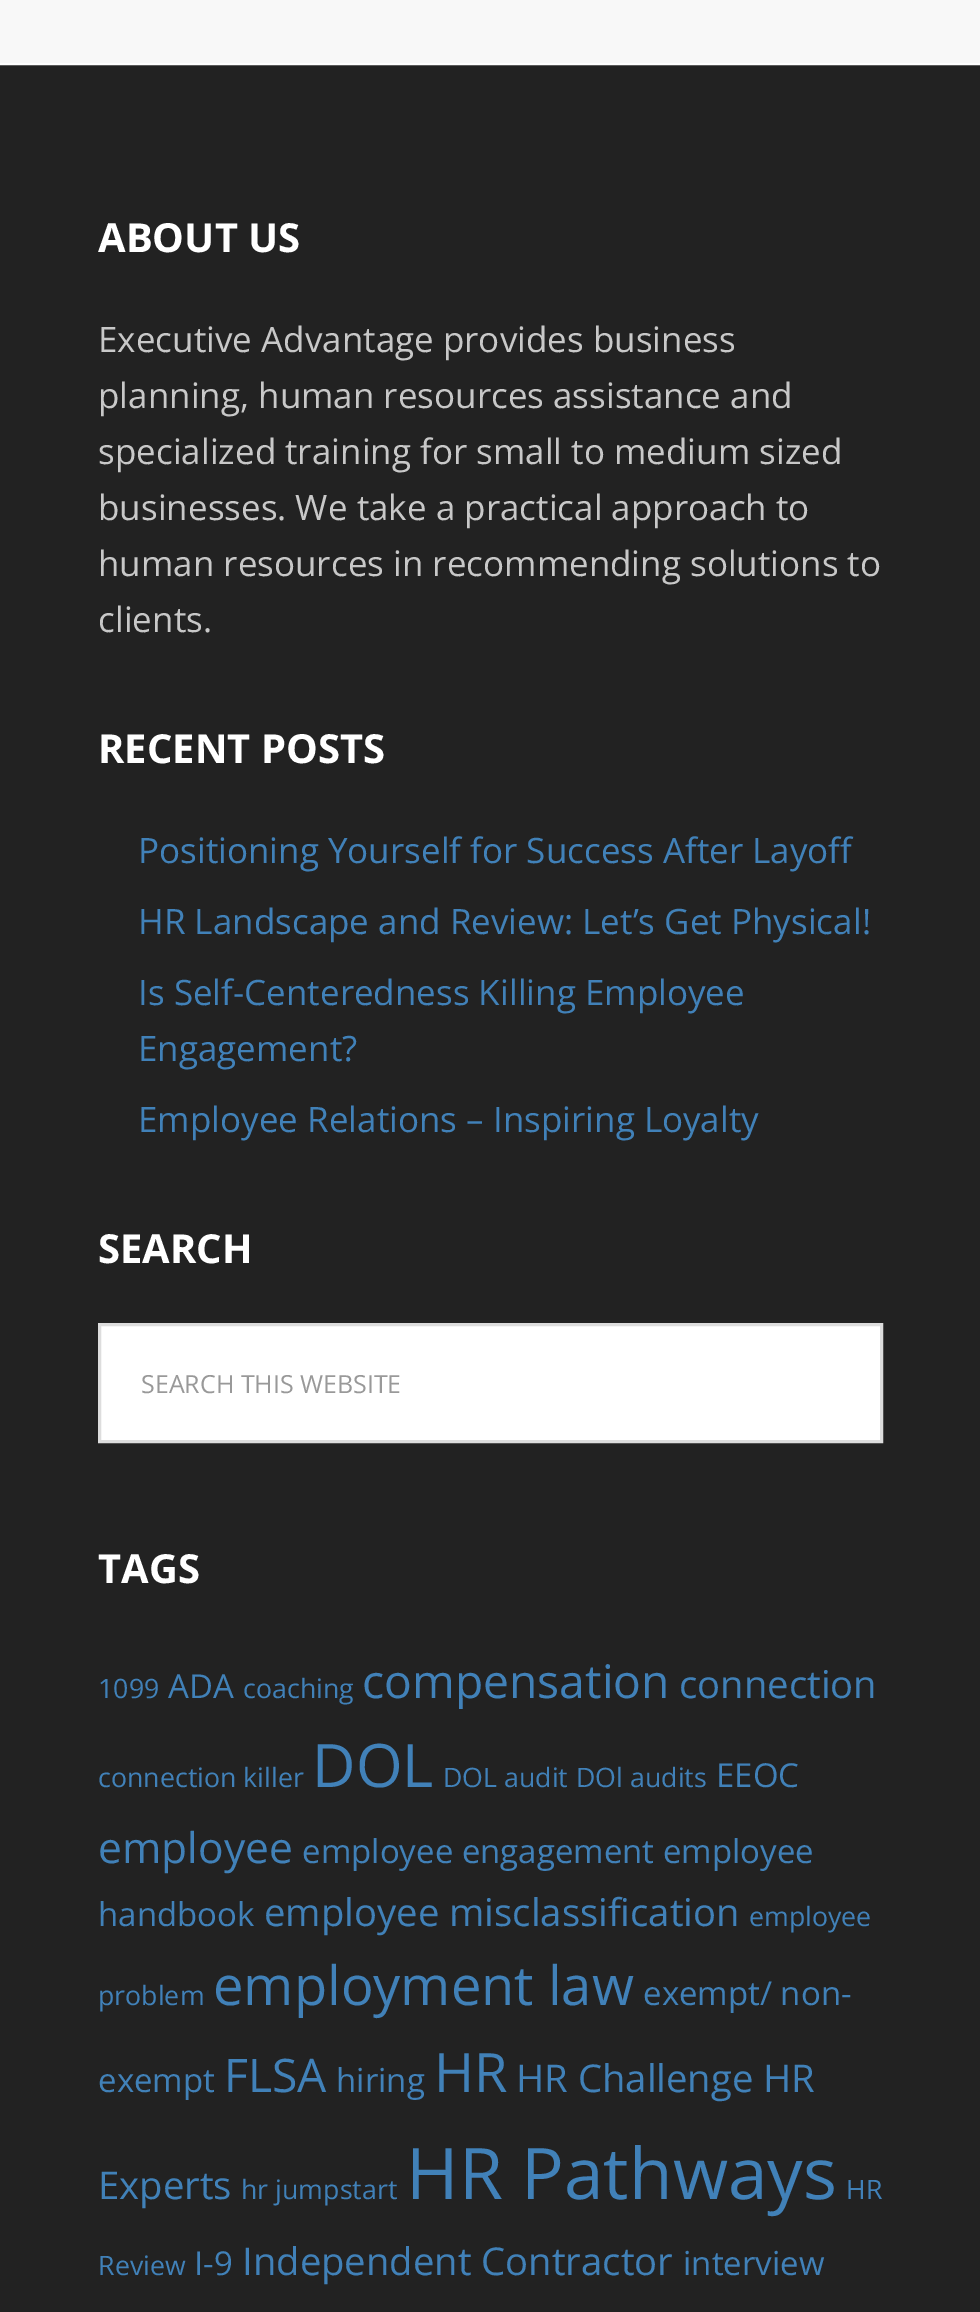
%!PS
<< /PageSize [980 2312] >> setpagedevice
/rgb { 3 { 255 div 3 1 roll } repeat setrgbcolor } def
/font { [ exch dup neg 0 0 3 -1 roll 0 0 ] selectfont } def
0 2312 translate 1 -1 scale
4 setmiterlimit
34 34 34 rgb
0 0 980 2312 rectfill
255 255 255 rgb
3 setlinewidth
-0.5 -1.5 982 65 rectstroke
248 248 248 rgb
0 0 980 63 rectfill
255 255 255 rgb
99.5 1324.5 moveto 881.5 1324.5 lineto 881.5 1441.5 lineto 99.5 1441.5 lineto closepath gsave fill grestore
221 221 221 rgb
stroke
/OpenSans-Bold 40 font
255 255 255 rgb
98 252 moveto (ABOUT US) show
/OpenSans-Regular 35 font
200 200 200 rgb
[
  [(Executive Advantage provides business) 98 352]
  [(planning, human resources assistance and) 98 408]
  [(specialized training for small to medium sized) 98 464]
  [(businesses. We take a practical approach to) 98 520]
  [(human resources in recommending solutions to) 98 576]
  [(clients.) 98 632]
] { aload pop moveto show } forall
/OpenSans-Bold 40 font
255 255 255 rgb
98 763 moveto (RECENT POSTS) show
/OpenSans-Regular 35 font
65 129 184 rgb
[
  [(Positioning Yourself for Success After Layoff) 138 863]
  [(HR Landscape and Review: Let’s Get Physical!) 138 934]
  [(Is Self-Centeredness Killing Employee) 138 1005]
  [(Engagement?) 138 1061]
  [(Employee Relations – Inspiring Loyalty) 138 1132]
] { aload pop moveto show } forall
/OpenSans-Bold 40 font
255 255 255 rgb
98 1263 moveto (SEARCH) show
/OpenSans-Regular 25 font
153 153 153 rgb
141 1393 moveto (SEARCH THIS WEBSITE) show
/OpenSans-Bold 40 font
255 255 255 rgb
98 1583 moveto (TAGS) show
/OpenSans-Regular 26.75 font
65 129 184 rgb
98 1698 moveto (1099) show
/OpenSans-Regular 33 font
168 1698 moveto (ADA) show
/OpenSans-Regular 26.75 font
243 1698 moveto (coaching) show
/OpenSans-Regular 46.25 font
362 1698 moveto (compensation) show
/OpenSans-Regular 38.25 font
679 1698 moveto (connection) show
/OpenSans-Regular 26.75 font
98 1787 moveto (connection killer) show
/OpenSans-Regular 60 font
312 1787 moveto (DOL) show
/OpenSans-Regular 26.75 font
443 1787 moveto (DOL audit) show
576 1787 moveto (DOl audits) show
/OpenSans-Regular 33 font
716 1787 moveto (EEOC) show
/OpenSans-Regular 42.5 font
98 1863 moveto (employee) show
/OpenSans-Regular 33 font
302 1863 moveto (employee engagement employee) show
98 1926 moveto (handbook) show
/OpenSans-Regular 38.25 font
264 1926 moveto (employee misclassification) show
/OpenSans-Regular 26.75 font
749 1926 moveto (employee) show
98 2005 moveto (problem) show
/OpenSans-Regular 54.25 font
213 2005 moveto (employment law) show
/OpenSans-Regular 33 font
643 2005 moveto (exempt/ non-) show
98 2092 moveto (exempt) show
/OpenSans-Regular 46.25 font
224 2092 moveto (FLSA) show
/OpenSans-Regular 33 font
336 2092 moveto (hiring) show
/OpenSans-Regular 54.25 font
434 2092 moveto (HR) show
/OpenSans-Regular 38.25 font
[
  [(HR Challenge) 516 2092]
  [(HR) 763 2092]
  [(Experts) 98 2199]
] { aload pop moveto show } forall
/OpenSans-Regular 26.75 font
241 2199 moveto (hr jumpstart) show
/OpenSans-Regular 71.25 font
406 2199 moveto (HR Pathways) show
/OpenSans-Regular 26.75 font
846 2199 moveto (HR) show
98 2275 moveto (Review) show
/OpenSans-Regular 33 font
194 2275 moveto (I-9) show
/OpenSans-Regular 38.25 font
242 2275 moveto (Independent Contractor) show
/OpenSans-Regular 33 font
683 2275 moveto (interview) show
showpage
